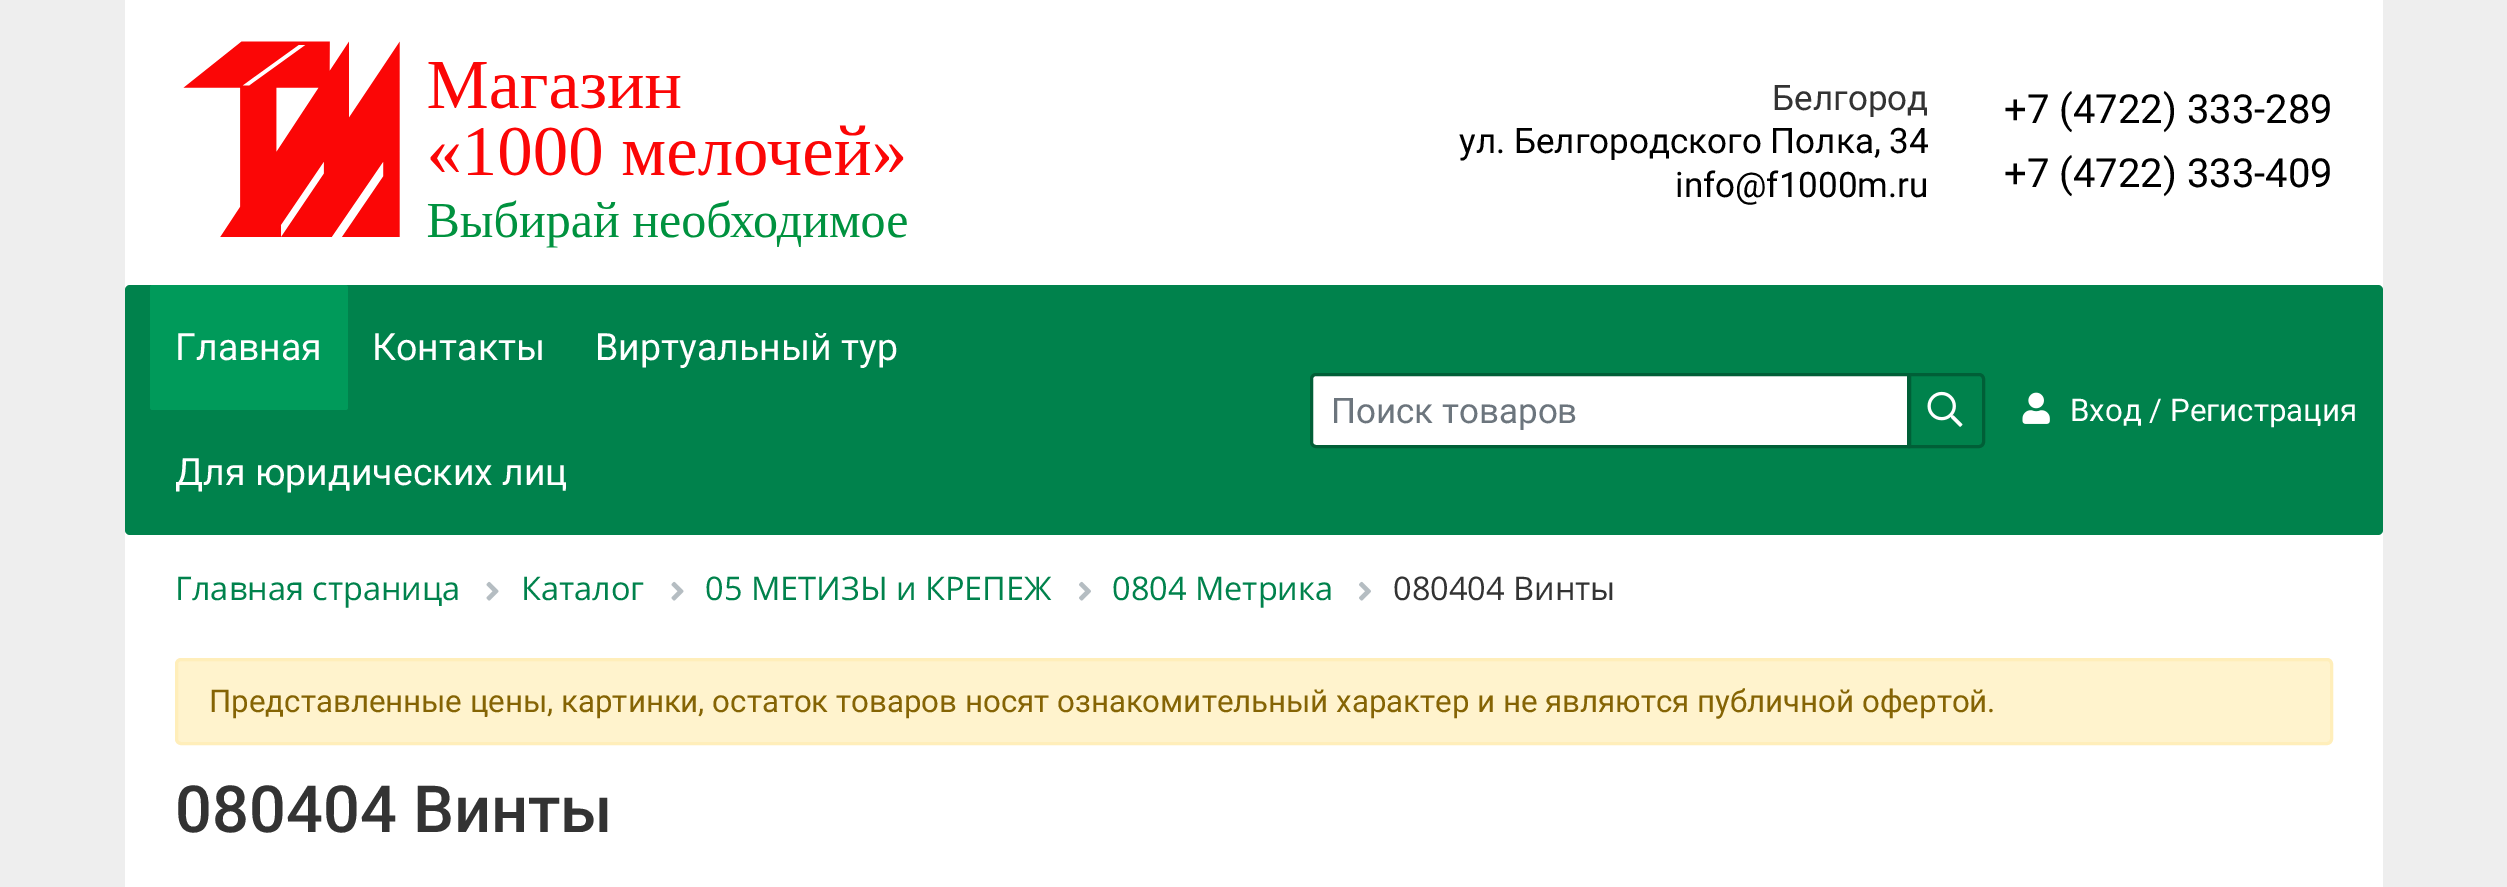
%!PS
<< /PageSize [2507 887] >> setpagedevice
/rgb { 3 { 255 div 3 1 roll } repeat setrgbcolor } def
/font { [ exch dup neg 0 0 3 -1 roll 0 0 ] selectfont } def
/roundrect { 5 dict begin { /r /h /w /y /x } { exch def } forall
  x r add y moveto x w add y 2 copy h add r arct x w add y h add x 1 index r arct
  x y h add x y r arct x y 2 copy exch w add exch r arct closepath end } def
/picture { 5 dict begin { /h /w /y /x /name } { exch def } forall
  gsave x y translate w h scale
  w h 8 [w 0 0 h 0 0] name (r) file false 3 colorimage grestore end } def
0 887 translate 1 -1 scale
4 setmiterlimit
238 238 238 rgb
0 0 2507 887 rectfill
255 255 255 rgb
125 0 2258 887 rectfill
(img/1.rgb) 183 41 724 207 picture
0 130 76 rgb
125 285 2258 250 5 roundrect fill
0 154 90 rgb
150 285 198 125 2.5 roundrect fill
255 255 255 rgb
1316 374.5 moveto 1908.5 374.5 lineto 1908.5 446.5 lineto 1316 446.5 lineto 1313.5 446.5 1311.5 444.5 1311.5 442 curveto 1311.5 379 lineto 1311.5 376.5 1313.5 374.5 1316 374.5 curveto closepath gsave fill grestore
0 95 55 rgb
3 setlinewidth
stroke
0 130 76 rgb
1909.5 374.5 moveto 1979 374.5 lineto 1981.5 374.5 1983.5 376.5 1983.5 379 curveto 1983.5 442 lineto 1983.5 444.5 1981.5 446.5 1979 446.5 curveto 1909.5 446.5 lineto closepath gsave fill grestore
0 95 55 rgb
stroke
(img/2.rgb) 1927 391 36 36 picture
(img/3.rgb) 2022 392 28 32 picture
(img/4.rgb) 486 581 13 20 picture
(img/4.rgb) 671 581 13 20 picture
(img/5.rgb) 1079 581 12 20 picture
(img/5.rgb) 1359 581 12 20 picture
255 243 205 rgb
176.5 659.5 2155 84 4.5 roundrect gsave fill grestore
255 238 186 rgb
stroke
/Roboto-Regular 35 font
51 51 51 rgb
1772 110 moveto (Белгород) show
0 0 0 rgb
1459 153 moveto (ул. Белгородского Полка, 34) show
1675 197 moveto (info@f1000m.ru) show
/Roboto-Regular 40 font
2004 123 moveto (+7 \(4722\) 333-289) show
2004 187 moveto (+7 \(4722\) 333-409) show
/Roboto-Regular 37.5 font
255 255 255 rgb
[
  [(Главная) 175 360]
  [(Контакты) 372 360]
  [(Виртуальный тур) 595 360]
  [(Для юридических лиц) 175 485]
] { aload pop moveto show } forall
gsave
1330 390 558 40 rectclip
/Roboto-Regular 35 font
108 117 125 rgb
1331 423 moveto (Поиск товаров) show
grestore
/Roboto-Regular 31.25 font
2070 421 moveto (Вход / Регистрация) show
/OpenSans-Regular 32.5 font
0 130 76 rgb
[
  [(Главная страница) 175 600]
  [(Каталог) 521 600]
  [(05 МЕТИЗЫ и КРЕПЕЖ) 705 600]
  [(0804 Метрика) 1112 600]
] { aload pop moveto show } forall
51 51 51 rgb
1393 600 moveto (080404 Винты) show
/Roboto-Regular 31.25 font
133 100 4 rgb
209 712 moveto (Представленные цены, картинки, остаток товаров носят ознакомительный характер и не являются публичной офертой.) show
/Roboto-Medium 65 font
51 51 51 rgb
175 832 moveto (080404 Винты) show
showpage
